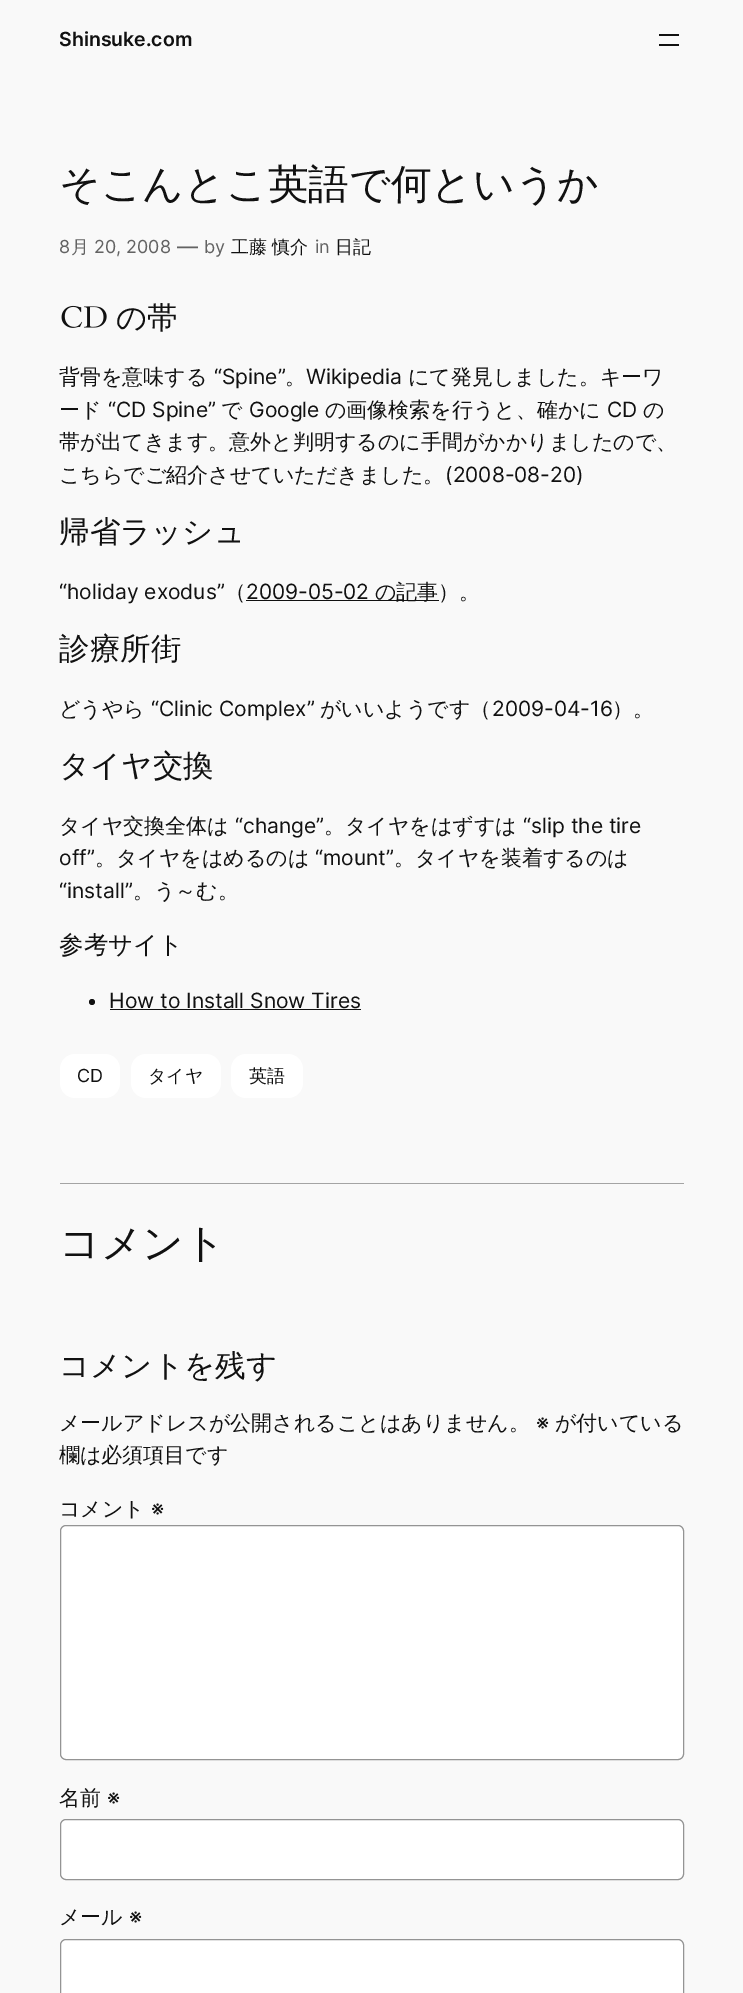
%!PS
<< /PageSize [743 1993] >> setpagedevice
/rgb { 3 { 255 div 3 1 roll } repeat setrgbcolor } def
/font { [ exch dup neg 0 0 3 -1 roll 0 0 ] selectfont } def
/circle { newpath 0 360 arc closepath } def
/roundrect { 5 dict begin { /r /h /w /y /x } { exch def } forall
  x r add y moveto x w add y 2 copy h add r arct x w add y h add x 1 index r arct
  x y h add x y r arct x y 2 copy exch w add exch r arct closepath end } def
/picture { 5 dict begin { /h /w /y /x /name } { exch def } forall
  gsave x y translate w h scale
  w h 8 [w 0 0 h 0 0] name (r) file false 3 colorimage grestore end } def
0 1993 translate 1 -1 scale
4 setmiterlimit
249 249 249 rgb
0 0 743 1993 rectfill
17 17 17 rgb
659 34 20 2 rectfill
659 44 20 2 rectfill
(img/1.rgb) 61 305 46 23 picture
246 600 193 1 rectfill
92 1002 3 circle fill
110 1009 251 1 rectfill
255 255 255 rgb
60 1054 60 44 15 roundrect fill
131 1054 90 44 15 roundrect fill
231 1054 72 44 15 roundrect fill
164 164 164 rgb
60 1183 624 1 rectfill
255 255 255 rgb
60.5 1525.5 623 234 5.5 roundrect gsave fill grestore
148 148 148 rgb
stroke
255 255 255 rgb
60.5 1819.5 623 60 5.5 roundrect gsave fill grestore
148 148 148 rgb
stroke
255 255 255 rgb
60.5 1939.5 623 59 5.5 roundrect gsave fill grestore
148 148 148 rgb
stroke
/Inter-SemiBold 19.5 font
17 17 17 rgb
59 46 moveto (Shinsuke.com) show
/WenQuanYiZenHei-Medium 40.75 font
59 198 moveto (そこんとこ英語で何というか) show
/Inter-Regular 18 font
99 99 99 rgb
59 253 moveto (8) show
/WenQuanYiZenHei-Medium 18 font
71 253 moveto (月) show
/Inter-Regular 18 font
94 253 moveto (20, 2008) show
/Inter-Regular 21 font
177 254 moveto (—) show
/Inter-Regular 18 font
204 253 moveto (by) show
/WenQuanYiZenHei-Medium 18 font
17 17 17 rgb
231 253 moveto (工藤 慎介) show
/Inter-Regular 18 font
99 99 99 rgb
315 253 moveto (in) show
/WenQuanYiZenHei-Medium 18 font
17 17 17 rgb
335 253 moveto (日記) show
/WenQuanYiZenHei-Medium 30.5 font
116 328 moveto (の帯) show
/WenQuanYiZenHei-Medium 21 font
59 384 moveto (背骨を意味する) show
/Inter-Regular 21 font
214 384 moveto (“Spine”) show
/WenQuanYiZenHei-Medium 21 font
285 384 moveto (。) show
/Inter-Regular 21 font
306 384 moveto (Wikipedia) show
/WenQuanYiZenHei-Medium 21 font
408 384 moveto (にて発見しました。キーワ) show
59 417 moveto (ード) show
/Inter-Regular 21 font
108 417 moveto (“CD Spine”) show
/WenQuanYiZenHei-Medium 21 font
221 417 moveto (で) show
/Inter-Regular 21 font
249 417 moveto (Google) show
/WenQuanYiZenHei-Medium 21 font
325 417 moveto (の画像検索を行うと、確かに) show
/Inter-Regular 21 font
607 417 moveto (CD) show
/WenQuanYiZenHei-Medium 21 font
[
  [(の) 643 417]
  [(帯が出てきます。意外と判明するのに手間がかかりましたので、) 59 449]
  [(こちらでご紹介させていただきました。) 59 482]
] { aload pop moveto show } forall
/Inter-Regular 21 font
445 482 moveto (\(2008-08-20\)) show
/WenQuanYiZenHei-Medium 30.5 font
59 542 moveto (帰省ラッシュ) show
/Inter-Regular 21 font
59 599 moveto (“holiday exodus”) show
/WenQuanYiZenHei-Medium 21 font
225 599 moveto (（) show
/Inter-Regular 21 font
246 599 moveto (2009-05-02) show
/WenQuanYiZenHei-Medium 21 font
375 599 moveto (の記事）。) show
/WenQuanYiZenHei-Medium 30.5 font
59 659 moveto (診療所街) show
/WenQuanYiZenHei-Medium 21 font
59 716 moveto (どうやら) show
/Inter-Regular 21 font
151 716 moveto (“Clinic Complex”) show
/WenQuanYiZenHei-Medium 21 font
320 716 moveto (がいいようです（) show
/Inter-Regular 21 font
492 716 moveto (2009-04-16) show
/WenQuanYiZenHei-Medium 21 font
612 716 moveto (）。) show
/WenQuanYiZenHei-Medium 30.5 font
59 776 moveto (タイヤ交換) show
/WenQuanYiZenHei-Medium 21 font
59 833 moveto (タイヤ交換全体は) show
/Inter-Regular 21 font
235 833 moveto (“change”) show
/WenQuanYiZenHei-Medium 21 font
324 833 moveto (。タイヤをはずすは) show
/Inter-Regular 21 font
523 833 moveto (“slip the tire) show
59 865 moveto (off”) show
/WenQuanYiZenHei-Medium 21 font
95 865 moveto (。タイヤをはめるのは) show
/Inter-Regular 21 font
315 865 moveto (“mount”) show
/WenQuanYiZenHei-Medium 21 font
394 865 moveto (。タイヤを装着するのは) show
/Inter-Regular 21 font
59 898 moveto (“install”) show
/WenQuanYiZenHei-Medium 21 font
133 898 moveto (。う～む。) show
/WenQuanYiZenHei-Medium 24.5 font
59 953 moveto (参考サイト) show
/Inter-Regular 21 font
109 1008 moveto (How to Install Snow Tires) show
/Inter-Regular 18 font
77 1082 moveto (CD) show
/WenQuanYiZenHei-Medium 18 font
148 1082 moveto (タイヤ) show
249 1082 moveto (英語) show
/WenQuanYiZenHei-Medium 40.75 font
59 1257 moveto (コメント) show
/WenQuanYiZenHei-Medium 30.5 font
59 1376 moveto (コメントを残す) show
/WenQuanYiZenHei-Medium 21 font
59 1430 moveto (メールアドレスが公開されることはありません。) show
/Inter-Regular 21 font
536 1430 moveto (※) show
/WenQuanYiZenHei-Medium 21 font
[
  [(が付いている) 555 1430]
  [(欄は必須項目です) 59 1462]
  [(コメント) 59 1516]
] { aload pop moveto show } forall
/Inter-Regular 21 font
151 1516 moveto (※) show
/WenQuanYiZenHei-Medium 21 font
59 1805 moveto (名前) show
/Inter-Regular 21 font
107 1805 moveto (※) show
/WenQuanYiZenHei-Medium 21 font
59 1924 moveto (メール) show
/Inter-Regular 21 font
129 1924 moveto (※) show
showpage
